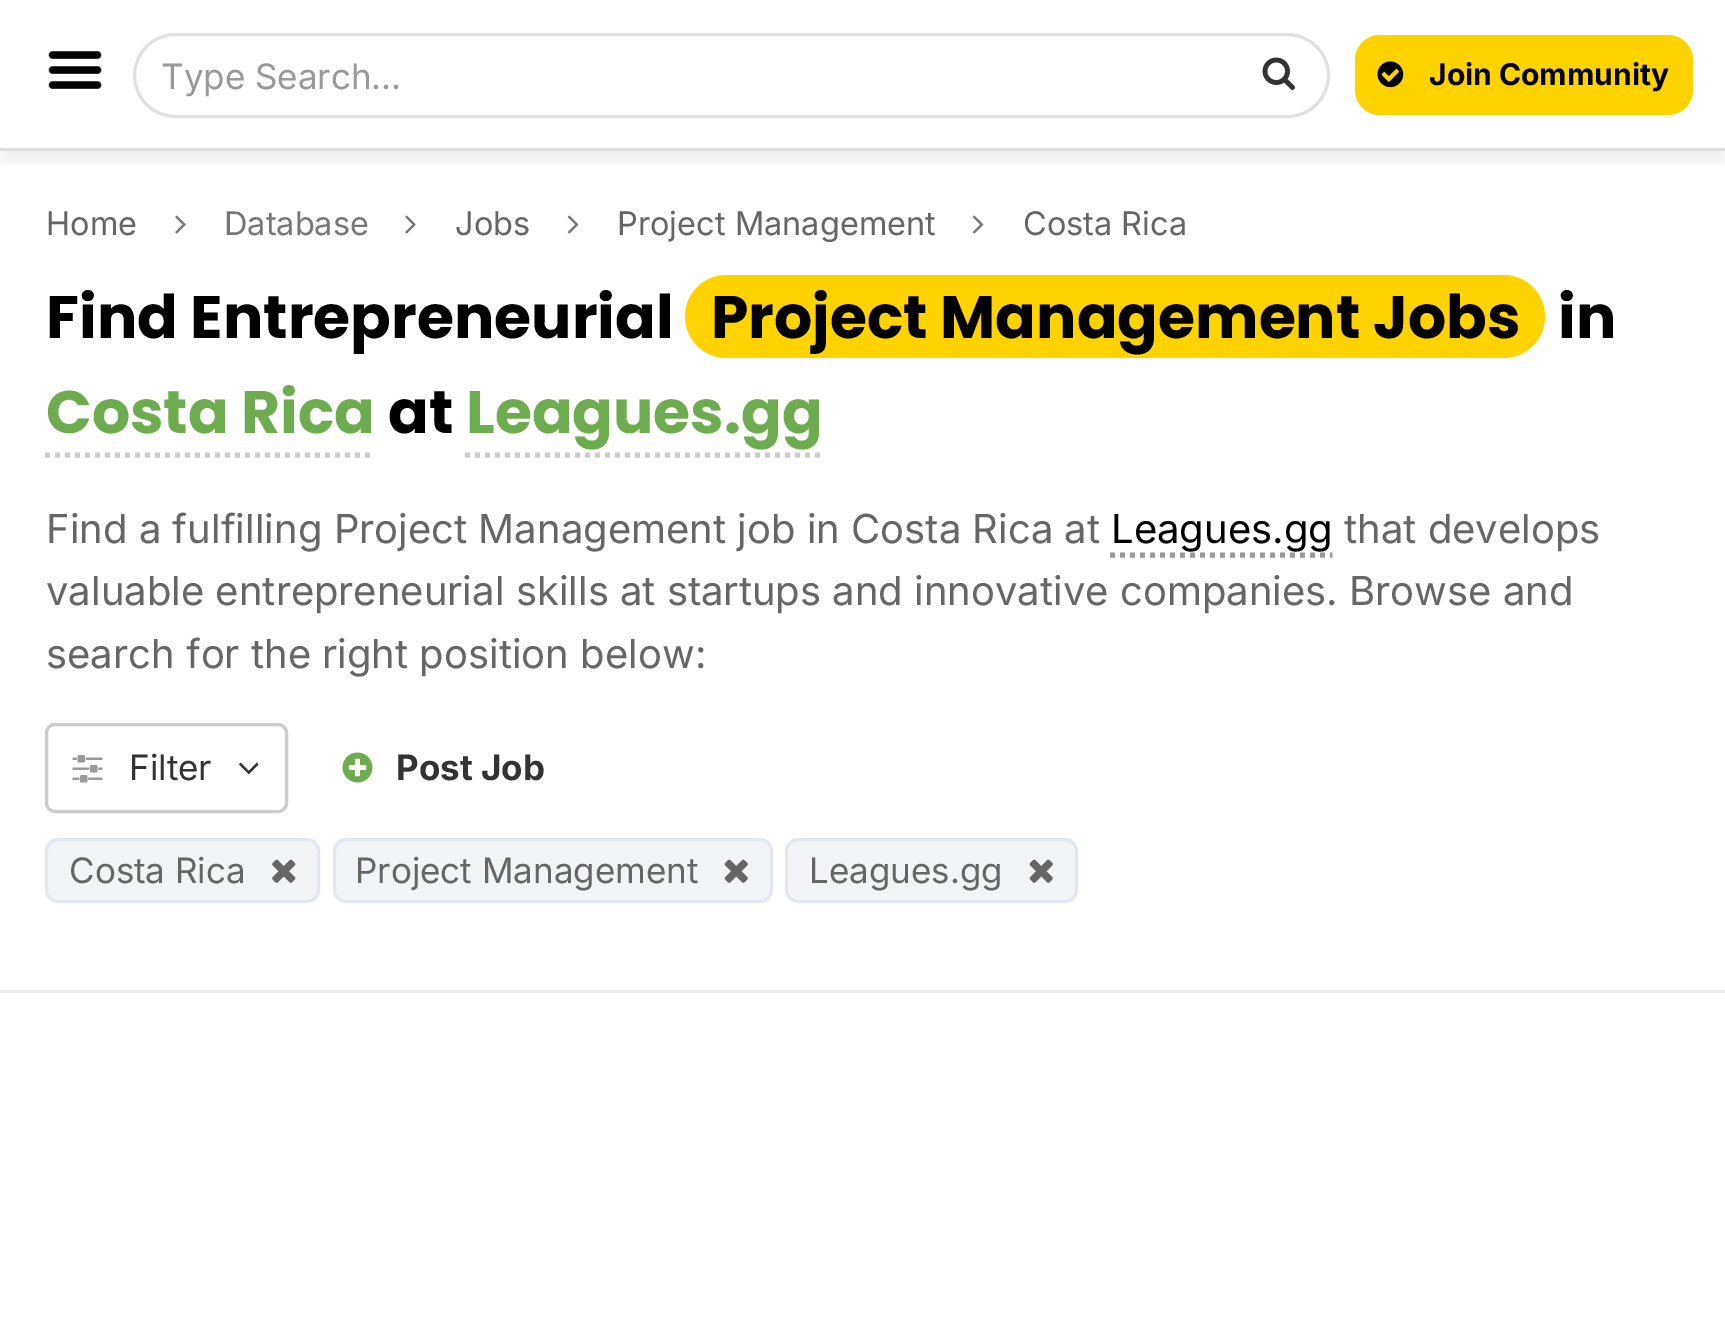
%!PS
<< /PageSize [1725 1326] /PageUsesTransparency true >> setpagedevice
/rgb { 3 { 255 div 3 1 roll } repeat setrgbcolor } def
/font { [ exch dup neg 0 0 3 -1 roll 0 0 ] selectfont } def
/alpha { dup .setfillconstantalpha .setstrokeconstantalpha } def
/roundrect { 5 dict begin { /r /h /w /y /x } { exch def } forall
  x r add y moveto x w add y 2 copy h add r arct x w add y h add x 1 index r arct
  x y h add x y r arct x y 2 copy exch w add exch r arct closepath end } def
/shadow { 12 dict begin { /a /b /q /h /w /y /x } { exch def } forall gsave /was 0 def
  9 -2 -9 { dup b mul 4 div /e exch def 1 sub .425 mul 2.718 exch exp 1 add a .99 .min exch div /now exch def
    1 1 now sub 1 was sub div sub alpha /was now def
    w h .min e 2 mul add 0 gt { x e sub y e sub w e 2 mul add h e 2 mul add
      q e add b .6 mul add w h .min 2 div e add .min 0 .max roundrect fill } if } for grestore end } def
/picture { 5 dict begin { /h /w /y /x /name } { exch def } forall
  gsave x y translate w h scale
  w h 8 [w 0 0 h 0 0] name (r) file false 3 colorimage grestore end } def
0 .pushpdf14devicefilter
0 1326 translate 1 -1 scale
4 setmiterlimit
255 255 255 rgb
0 0 1725 1326 rectfill
gsave
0 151 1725 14 rectclip
0 0 0 rgb
0 13 1725 150 0 6 0.05 shadow
grestore
221 221 221 rgb
0 148 1725 3 rectfill
(img/1.rgb) 48 51 54 38 picture
225 225 225 rgb
3 setlinewidth
134.5 34.5 1194 82 41 roundrect stroke
(img/2.rgb) 1262 57 33 33 picture
255 211 0 rgb
1355 35 338 80 25 roundrect fill
(img/3.rgb) 1377 61 27 27 picture
(img/4.rgb) 175 215 11 19 picture
(img/4.rgb) 405 215 11 19 picture
(img/5.rgb) 567 215 12 19 picture
(img/5.rgb) 972 215 12 19 picture
685 275 860 83 41.5 roundrect fill
204 204 204 rgb
5 setlinewidth
[5 5] 0 setdash
45 455 moveto 375 455 lineto stroke
465 455 moveto 822.5 455 lineto stroke
153 153 153 rgb
1110 555 moveto 1332.5 555 lineto stroke
204 204 204 rgb
3 setlinewidth
[] 0 setdash
46.5 724.5 240 87 8.5 roundrect stroke
(img/6.rgb) 72 755 31 28 picture
(img/7.rgb) 239 762 20 13 picture
(img/8.rgb) 342 752 31 31 picture
242 244 247 rgb
46.5 839.5 272 62 11.5 roundrect gsave fill grestore
227 231 240 rgb
stroke
(img/9.rgb) 272 859 24 24 picture
242 244 247 rgb
334.5 839.5 437 62 11.5 roundrect gsave fill grestore
227 231 240 rgb
stroke
(img/10.rgb) 724 859 24 24 picture
242 244 247 rgb
786.5 839.5 290 62 11.5 roundrect gsave fill grestore
227 231 240 rgb
stroke
(img/10.rgb) 1029 859 24 24 picture
238 238 238 rgb
0 990 1725 3 rectfill
/Inter-Regular 35 font
153 153 153 rgb
161 89 moveto (Type Search...) show
/Inter-Bold 30 font
0 0 0 rgb
1429 85 moveto (Join Community) show
/Inter-Regular 32.5 font
102 102 102 rgb
46 235 moveto (Home) show
119 119 119 rgb
224 235 moveto (Database) show
102 102 102 rgb
[
  [(Jobs) 455 235]
  [(Project Management) 617 235]
  [(Costa Rica) 1023 235]
] { aload pop moveto show } forall
/Poppins-Bold 60 font
0 0 0 rgb
[
  [(Find Entrepreneurial) 46 338]
  [(Project Management Jobs) 711 338]
  [(in) 1558 338]
] { aload pop moveto show } forall
109 173 79 rgb
46 433 moveto (Costa Rica) show
0 0 0 rgb
388 433 moveto (at) show
109 173 79 rgb
466 433 moveto (Leagues.gg) show
/Inter-Regular 40 font
102 102 102 rgb
46 543 moveto (Find a fulfilling Project Management job in Costa Rica at) show
0 0 0 rgb
1111 543 moveto (Leagues.gg) show
102 102 102 rgb
[
  [(that develops) 1344 543]
  [(valuable entrepreneurial skills at startups and innovative companies. Browse and) 46 605]
  [(search for the right position below:) 46 668]
] { aload pop moveto show } forall
/Inter-Regular 35 font
51 51 51 rgb
129 780 moveto (Filter) show
/Inter-Bold 35 font
396 780 moveto (Post Job) show
/Inter-Regular 35 font
102 102 102 rgb
[
  [(Costa Rica) 69 883]
  [(Project Management) 355 883]
  [(Leagues.gg) 809 883]
] { aload pop moveto show } forall
.poppdf14devicefilter showpage
